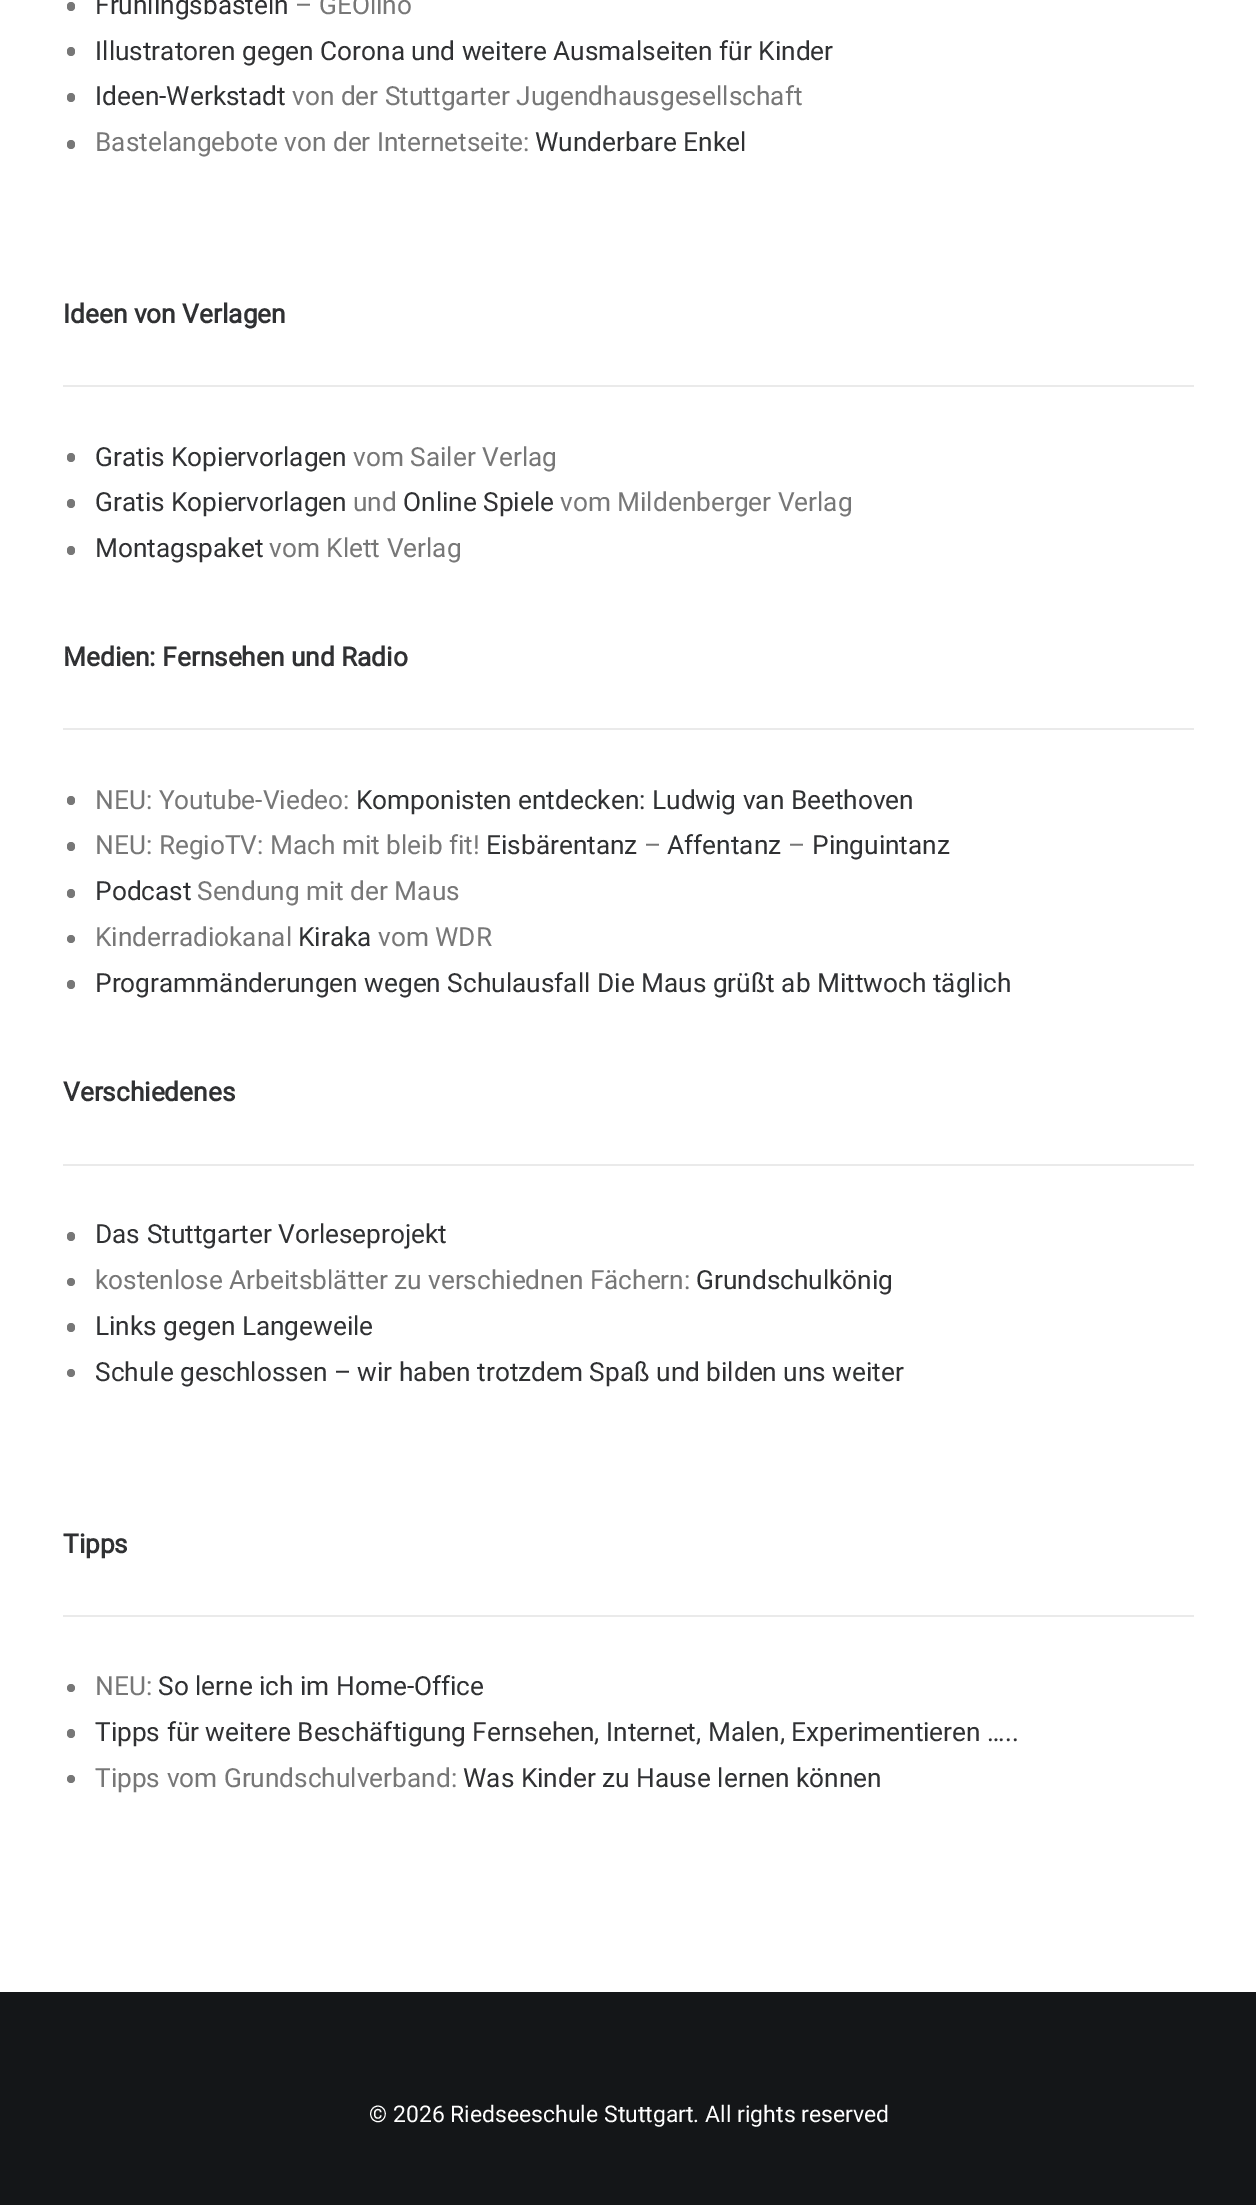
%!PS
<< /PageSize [1256 2205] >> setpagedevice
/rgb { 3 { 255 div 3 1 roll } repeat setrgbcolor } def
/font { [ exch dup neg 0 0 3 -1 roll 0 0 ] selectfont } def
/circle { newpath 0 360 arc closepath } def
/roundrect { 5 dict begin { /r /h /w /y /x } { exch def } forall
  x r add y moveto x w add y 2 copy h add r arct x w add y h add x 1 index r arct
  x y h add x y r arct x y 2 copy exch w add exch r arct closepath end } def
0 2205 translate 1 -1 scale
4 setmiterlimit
255 255 255 rgb
0 0 1256 2205 rectfill
119 119 119 rgb
67 2 8 9 4 roundrect fill
67 47 8 9 4 roundrect fill
67 93 8 9 4 roundrect fill
67 140 8 9 4 roundrect fill
234 234 234 rgb
63 385 1131 2 rectfill
119 119 119 rgb
67 453 8 9 4 roundrect fill
67 499 8 9 4 roundrect fill
67 546 8 9 4 roundrect fill
234 234 234 rgb
63 728 1131 2 rectfill
119 119 119 rgb
67 796 8 9 4 roundrect fill
67 842 8 9 4 roundrect fill
67 889 8 9 4 roundrect fill
71 939 4 circle fill
67 980 8 9 4 roundrect fill
234 234 234 rgb
63 1164 1131 2 rectfill
119 119 119 rgb
67 1232 8 9 4 roundrect fill
71 1282 4 circle fill
67 1323 8 9 4 roundrect fill
71 1373 4 circle fill
234 234 234 rgb
63 1615 1131 2 rectfill
119 119 119 rgb
71 1688 4 circle fill
67 1729 8 9 4 roundrect fill
71 1779 4 circle fill
20 22 24 rgb
0 1992 1256 213 rectfill
/Roboto-Regular 26.25 font
48 49 51 rgb
95 14 moveto (Frühlingsbasteln) show
119 119 119 rgb
295 14 moveto (– GEOlino) show
48 49 51 rgb
95 60 moveto (Illustratoren gegen Corona und weitere Ausmalseiten für Kinder) show
95 105 moveto (Ideen-Werkstadt) show
119 119 119 rgb
292 105 moveto (von der Stuttgarter Jugendhausgesellschaft) show
95 151 moveto (Bastelangebote von der Internetseite:) show
48 49 51 rgb
535 151 moveto (Wunderbare Enkel) show
/Roboto-Bold 26.25 font
63 323 moveto (Ideen von Verlagen) show
/Roboto-Regular 26.25 font
95 466 moveto (Gratis Kopiervorlagen) show
119 119 119 rgb
353 466 moveto (vom Sailer Verlag) show
48 49 51 rgb
95 511 moveto (Gratis Kopiervorlagen) show
119 119 119 rgb
353 511 moveto (und) show
48 49 51 rgb
403 511 moveto (Online Spiele) show
119 119 119 rgb
560 511 moveto (vom Mildenberger Verlag) show
48 49 51 rgb
95 557 moveto (Montagspaket) show
119 119 119 rgb
269 557 moveto (vom Klett Verlag) show
/Roboto-Bold 26.25 font
48 49 51 rgb
63 666 moveto (Medien: Fernsehen und Radio) show
/Roboto-Regular 26.25 font
119 119 119 rgb
95 809 moveto (NEU: Youtube-Viedeo:) show
48 49 51 rgb
356 809 moveto (Komponisten entdecken: Ludwig van Beethoven) show
119 119 119 rgb
95 854 moveto (NEU: RegioTV: Mach mit bleib fit!) show
48 49 51 rgb
486 854 moveto (Eisbärentanz) show
119 119 119 rgb
644 854 moveto (–) show
48 49 51 rgb
667 854 moveto (Affentanz) show
119 119 119 rgb
788 854 moveto (–) show
48 49 51 rgb
812 854 moveto (Pinguintanz) show
95 900 moveto (Podcast) show
119 119 119 rgb
197 900 moveto (Sendung mit der Maus) show
95 946 moveto (Kinderradiokanal) show
48 49 51 rgb
298 946 moveto (Kiraka) show
119 119 119 rgb
378 946 moveto (vom WDR) show
48 49 51 rgb
95 992 moveto (Programmänderungen wegen Schulausfall Die Maus grüßt ab Mittwoch täglich) show
/Roboto-Bold 26.25 font
63 1101 moveto (Verschiedenes) show
/Roboto-Regular 26.25 font
95 1243 moveto (Das Stuttgarter Vorleseprojekt) show
119 119 119 rgb
95 1289 moveto (kostenlose Arbeitsblätter zu verschiednen Fächern:) show
48 49 51 rgb
[
  [(Grundschulkönig) 696 1289]
  [(Links gegen Langeweile) 95 1335]
  [(Schule geschlossen – wir haben trotzdem Spaß und bilden uns weiter) 95 1381]
] { aload pop moveto show } forall
/Roboto-Bold 26.25 font
63 1553 moveto (Tipps) show
/Roboto-Regular 26.25 font
119 119 119 rgb
95 1695 moveto (NEU:) show
48 49 51 rgb
158 1695 moveto (So lerne ich im Home-Office) show
95 1741 moveto (Tipps für weitere Beschäftigung Fernsehen, Internet, Malen, Experimentieren …..) show
119 119 119 rgb
95 1787 moveto (Tipps vom Grundschulverband:) show
48 49 51 rgb
463 1787 moveto (Was Kinder zu Hause lernen können) show
/Roboto-Regular 23 font
255 255 255 rgb
369 2122 moveto (© 2026 Riedseeschule Stuttgart. All rights reserved) show
showpage
